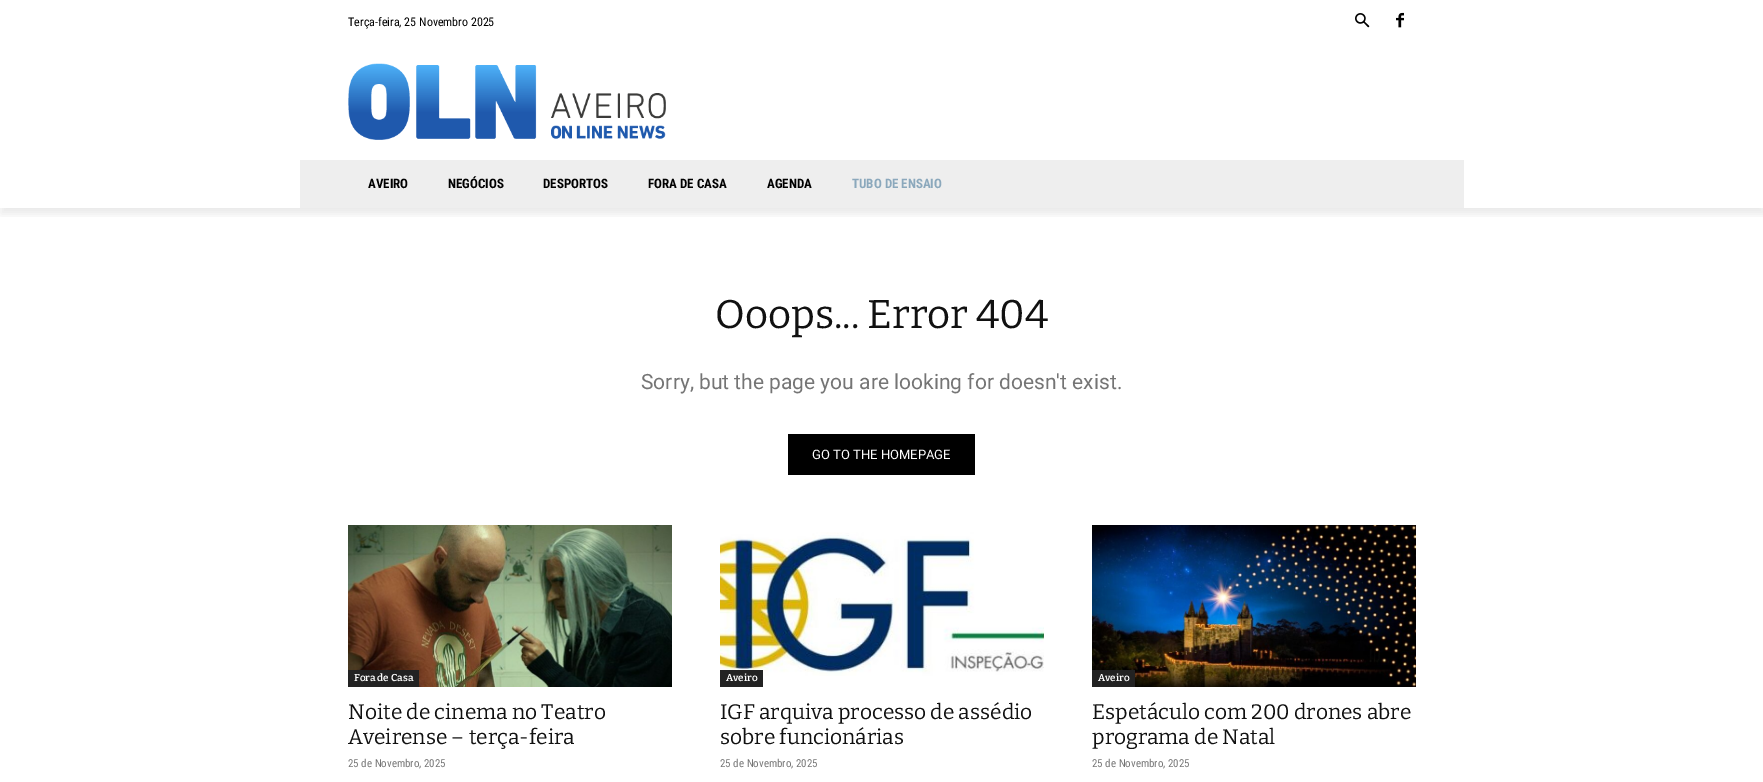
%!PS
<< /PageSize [1763 782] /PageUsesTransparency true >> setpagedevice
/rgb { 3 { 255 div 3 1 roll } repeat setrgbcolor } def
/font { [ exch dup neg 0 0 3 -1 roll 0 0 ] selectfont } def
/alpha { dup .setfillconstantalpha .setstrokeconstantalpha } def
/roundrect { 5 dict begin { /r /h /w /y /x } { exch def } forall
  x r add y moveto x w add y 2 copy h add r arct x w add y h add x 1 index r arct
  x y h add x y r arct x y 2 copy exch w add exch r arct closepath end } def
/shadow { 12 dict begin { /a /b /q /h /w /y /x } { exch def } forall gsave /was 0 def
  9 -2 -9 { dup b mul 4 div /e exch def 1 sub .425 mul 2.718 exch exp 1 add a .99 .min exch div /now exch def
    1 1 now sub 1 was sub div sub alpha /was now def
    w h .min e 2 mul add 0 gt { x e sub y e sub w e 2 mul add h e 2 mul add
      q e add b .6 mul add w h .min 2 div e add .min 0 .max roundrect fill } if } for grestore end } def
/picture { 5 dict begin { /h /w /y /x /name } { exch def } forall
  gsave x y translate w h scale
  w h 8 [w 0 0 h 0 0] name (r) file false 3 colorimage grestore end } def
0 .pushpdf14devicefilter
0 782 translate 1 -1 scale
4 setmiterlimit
255 255 255 rgb
0 0 1763 782 rectfill
(img/1.rgb) 1355 13 15 15 picture
(img/2.rgb) 1396 12 8 16 picture
(img/3.rgb) 348 63 318 77 picture
238 238 238 rgb
300 160 1164 48 rectfill
gsave
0 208 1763 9 rectclip
0 0 0 rgb
1 166 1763 48 0 4 0.08 shadow
grestore
0 0 0 rgb
788 434 187 41 rectfill
(img/4.rgb) 348 525 324 162 picture
34 34 34 rgb
348 670 71 17 rectfill
(img/5.rgb) 720 532 324 144 picture
720 670 43 17 rectfill
(img/6.rgb) 1092 525 324 162 picture
1092 670 43 17 rectfill
/RobotoCondensed-Regular 12 font
0 0 0 rgb
348 26 moveto (Terça-feira, 25 Novembro 2025) show
/RobotoCondensed-Bold 13 font
[
  [(AVEIRO) 368 188]
  [(NEGÓCIOS) 448 188]
  [(DESPORTOS) 543 188]
  [(FORA DE CASA) 648 188]
  [(AGENDA) 767 188]
] { aload pop moveto show } forall
139 168 188 rgb
852 188 moveto (TUBO DE ENSAIO) show
/Bitter-Regular 40 font
17 17 17 rgb
715 328 moveto (Ooops... Error 404) show
/Roboto-Regular 21 font
117 117 117 rgb
641 389 moveto (Sorry, but the page you are looking for doesn't exist.) show
/Roboto-Regular 13 font
255 255 255 rgb
812 459 moveto (GO TO THE HOMEPAGE) show
/Bitter-SemiBold 10 font
354 681 moveto (Fora de Casa) show
/Bitter-Regular 21 font
17 17 17 rgb
348 719 moveto (Noite de cinema no Teatro) show
348 744 moveto (Aveirense – terça-feira) show
/RobotoCondensed-Regular 11 font
117 117 117 rgb
348 767 moveto (25 de Novembro, 2025) show
/Bitter-SemiBold 10 font
255 255 255 rgb
726 681 moveto (Aveiro) show
/Bitter-Regular 21 font
17 17 17 rgb
720 719 moveto (IGF arquiva processo de assédio) show
720 744 moveto (sobre funcionárias) show
/RobotoCondensed-Regular 11 font
117 117 117 rgb
720 767 moveto (25 de Novembro, 2025) show
/Bitter-SemiBold 10 font
255 255 255 rgb
1098 681 moveto (Aveiro) show
/Bitter-Regular 21 font
17 17 17 rgb
1092 719 moveto (Espetáculo com 200 drones abre) show
1092 744 moveto (programa de Natal) show
/RobotoCondensed-Regular 11 font
117 117 117 rgb
1092 767 moveto (25 de Novembro, 2025) show
.poppdf14devicefilter showpage
